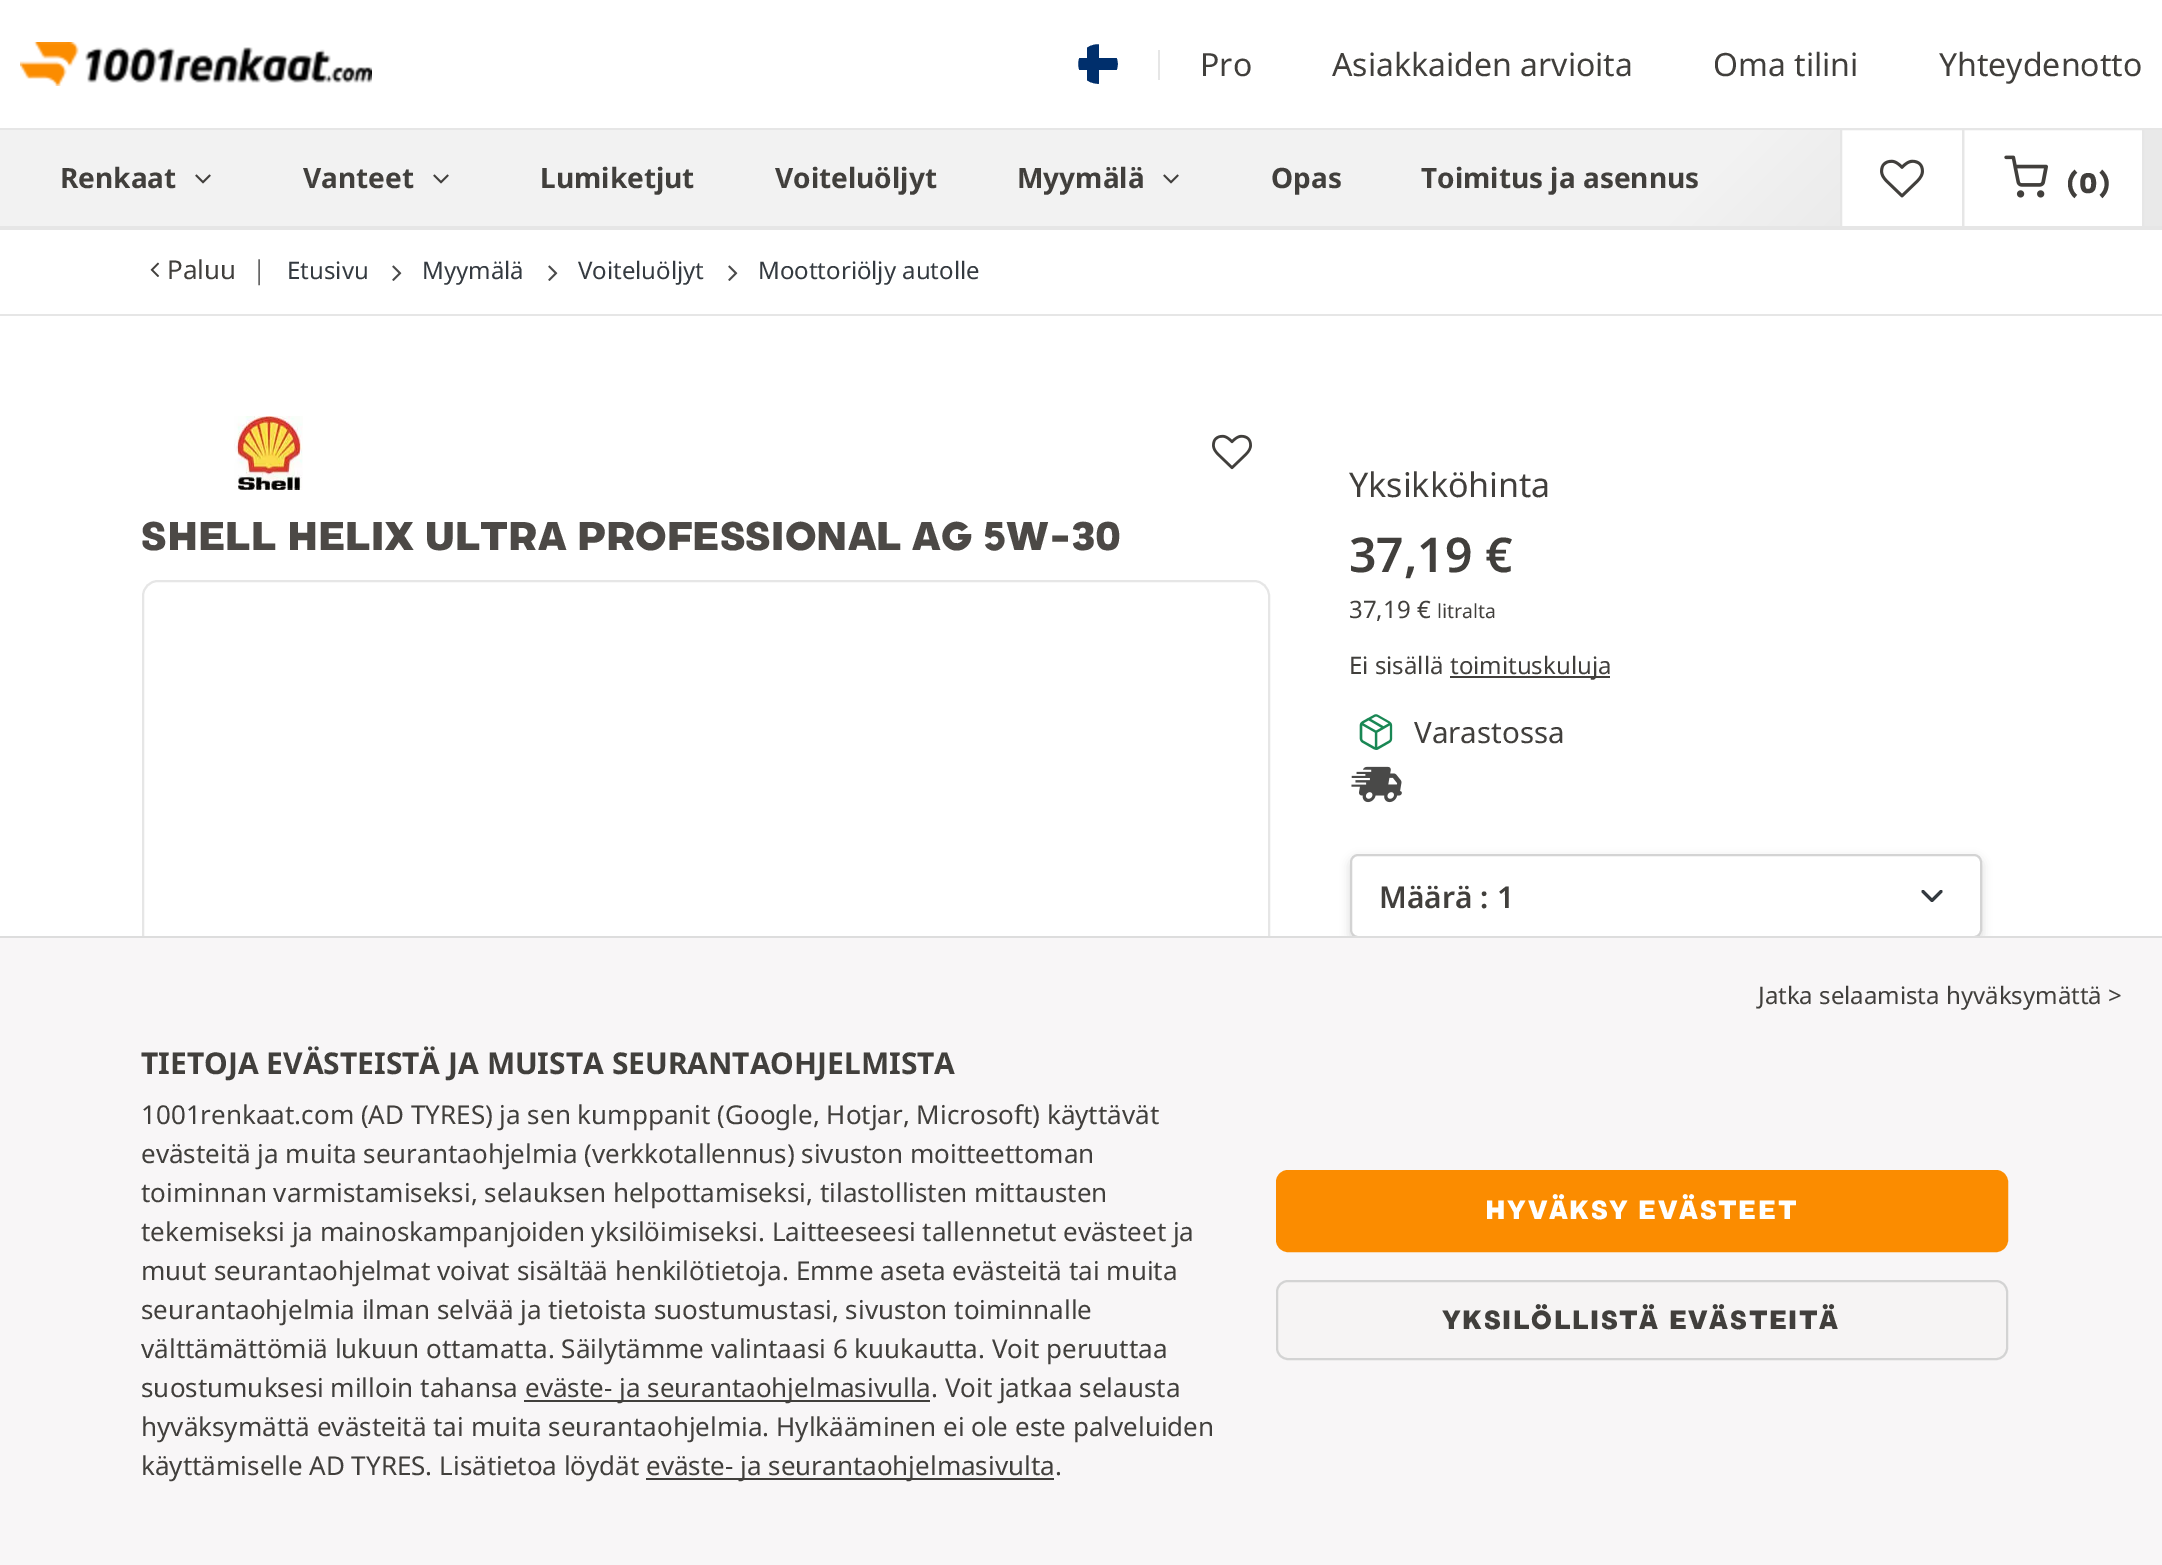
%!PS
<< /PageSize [2162 1565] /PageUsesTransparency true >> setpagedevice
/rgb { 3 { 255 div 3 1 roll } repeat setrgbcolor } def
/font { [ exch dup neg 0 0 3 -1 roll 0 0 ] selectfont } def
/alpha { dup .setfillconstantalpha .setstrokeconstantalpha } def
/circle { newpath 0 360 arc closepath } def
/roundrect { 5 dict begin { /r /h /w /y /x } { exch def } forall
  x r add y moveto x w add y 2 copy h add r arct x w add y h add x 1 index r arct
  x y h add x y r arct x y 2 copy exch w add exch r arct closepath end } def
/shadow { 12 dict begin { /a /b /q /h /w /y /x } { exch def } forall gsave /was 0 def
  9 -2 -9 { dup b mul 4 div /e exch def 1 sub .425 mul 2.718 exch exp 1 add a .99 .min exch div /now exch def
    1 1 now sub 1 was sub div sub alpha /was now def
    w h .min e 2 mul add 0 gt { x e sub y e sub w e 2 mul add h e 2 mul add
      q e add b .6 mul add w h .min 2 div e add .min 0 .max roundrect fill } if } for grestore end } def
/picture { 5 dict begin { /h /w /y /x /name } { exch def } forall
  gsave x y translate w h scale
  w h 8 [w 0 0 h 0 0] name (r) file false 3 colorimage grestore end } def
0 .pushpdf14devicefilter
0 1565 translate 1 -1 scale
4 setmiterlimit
255 255 255 rgb
0 0 2162 1565 rectfill
(img/1.rgb) 20 42 352 44 picture
0 47 108 rgb
1078 58 40 12 rectfill
gsave
1076 42 44 44 22 roundrect clip newpath
1087 44 12 40 rectfill
grestore
255 255 255 rgb
4 setlinewidth
1098 64 22 circle stroke
230 230 230 rgb
1158 50 2 30 rectfill
gsave 0 130 moveto 2162 130 lineto 2162 226 lineto 0 226 lineto closepath clip newpath
<< /ShadingType 2 /ColorSpace /DeviceRGB /Coords [516 -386 1646 743] /Extend [true true] /Function << /FunctionType 3 /Domain [0 1] /Functions [<< /FunctionType 2 /Domain [0 1] /C0 [0.949 0.949 0.949] /C1 [0.949 0.949 0.949] /N 1 >> << /FunctionType 2 /Domain [0 1] /C0 [0.949 0.949 0.949] /C1 [0.914 0.914 0.914] /N 1 >> << /FunctionType 2 /Domain [0 1] /C0 [0.949 0.949 0.949] /C1 [0.949 0.949 0.949] /N 1 >> << /FunctionType 2 /Domain [0 1] /C0 [0.914 0.914 0.914] /C1 [0.914 0.914 0.914] /N 1 >>] /Bounds [0.78 0.88 0.94] /Encode [0 1 0 1 0 1 0 1] >> >> shfill grestore
0 128 2162 2 rectfill
(img/2.rgb) 195 174 16 10 picture
(img/2.rgb) 433 174 16 10 picture
(img/2.rgb) 1163 174 16 10 picture
255 255 255 rgb
1842 130 300 96 rectfill
(img/3.rgb) 1880 159 44 39 picture
230 230 230 rgb
0 226 2162 4 rectfill
2 setlinewidth
1841 129 122 98 rectstroke
(img/4.rgb) 2004 155 44 43 picture
1963 129 180 98 rectstroke
0 314 2162 2 rectfill
(img/5.rgb) 150 262 10 15 picture
(img/6.rgb) 392 265 10 16 picture
(img/6.rgb) 548 265 10 16 picture
(img/6.rgb) 728 265 10 16 picture
(img/7.rgb) 234 416 69 74 picture
(img/8.rgb) 1212 434 40 36 picture
65 63 60 rgb
1450 676 160 2 rectfill
(img/9.rgb) 1359 714 34 36 picture
(img/10.rgb) 1351 766 51 37 picture
13 13 13 rgb
1350 858 632 84 8 5 0.15 shadow
255 255 255 rgb
1350 854 632 84 8 roundrect fill
52 58 64 rgb
3 setlinewidth
1 setlinecap
1 setlinejoin
1923 891.5 moveto 1932 900.5 lineto 1941 891.5 lineto stroke
211 211 211 rgb
2 setlinewidth
0 setlinecap
0 setlinejoin
1351 855 630 82 7 roundrect stroke
230 230 230 rgb
143 581 1126 622 15 roundrect stroke
[
  [0 938 2162 627 248 246 247]
  [0 936 2162 2 221 221 221]
  [524 1400 406 2 65 63 60]
  [646 1478 408 2 65 63 60]
] { aload pop rgb rectfill } forall
251 140 0 rgb
1277 1171 730 80 11 roundrect gsave fill grestore
stroke
246 244 244 rgb
1277 1281 730 78 11 roundrect gsave fill grestore
211 211 211 rgb
stroke
/NotoSans-Regular 32 font
65 63 60 rgb
[
  [(Pro) 1200 76]
  [(Asiakkaiden arvioita) 1332 76]
  [(Oma tilini) 1713 76]
  [(Yhteydenotto) 1939 76]
] { aload pop moveto show } forall
/NotoSans-Bold 28 font
[
  [(Renkaat) 60 188]
  [(Vanteet) 303 188]
  [(Lumiketjut) 540 188]
  [(Voiteluöljyt) 775 188]
  [(Myymälä) 1017 188]
  [(Opas) 1271 188]
  [(Toimitus ja asennus) 1421 188]
] { aload pop moveto show } forall
/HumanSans-Black 30 font
2066 193 moveto 1.5 0 (\(0\)) ashow
/NotoSans-Regular 26 font
167 279 moveto (Paluu) show
102 102 102 rgb
252 279 moveto (|) show
/NotoSans-Regular 24 font
52 58 64 rgb
[
  [(Etusivu) 287 279]
  [(Myymälä) 422 279]
  [(Voiteluöljyt) 578 279]
  [(Moottoriöljy autolle) 758 279]
] { aload pop moveto show } forall
/HumanSans-Black 42.4 font
76 73 70 rgb
141 550 moveto (SHELL HELIX ULTRA PROFESSIONAL AG 5W-30) show
/NotoSans-Regular 34 font
65 63 60 rgb
1349 497 moveto (Yksikköhinta) show
/NotoSans-SemiBold 48 font
1349 572 moveto (37,19 €) show
/NotoSans-Regular 24 font
1349 618 moveto (37,19 €) show
/NotoSans-Regular 19.5 font
1437 618 moveto (litralta) show
/NotoSans-Regular 24 font
1349 674 moveto (Ei sisällä) show
1450 674 moveto (toimituskuluja) show
/NotoSans-Regular 29.5 font
1414 743 moveto (Varastossa) show
/NotoSans-SemiBold 30 font
1379 908 moveto (Määrä :) show
1497 908 moveto (1) show
/NotoSans-Regular 24 font
1758 1004 moveto (Jatka selaamista hyväksymättä >) show
/NotoSans-Bold 30 font
141 1074 moveto (TIETOJA EVÄSTEISTÄ JA MUISTA SEURANTAOHJELMISTA) show
/NotoSans-Regular 26 font
[
  [(1001renkaat.com \(AD TYRES\) ja sen kumppanit \(Google, Hotjar, Microsoft\) käyttävät) 141 1124]
  [(evästeitä ja muita seurantaohjelmia \(verkkotallennus\) sivuston moitteettoman) 141 1163]
  [(toiminnan varmistamiseksi, selauksen helpottamiseksi, tilastollisten mittausten) 141 1202]
  [(tekemiseksi ja mainoskampanjoiden yksilöimiseksi. Laitteeseesi tallennetut evästeet ja) 141 1241]
  [(muut seurantaohjelmat voivat sisältää henkilötietoja. Emme aseta evästeitä tai muita) 141 1280]
  [(seurantaohjelmia ilman selvää ja tietoista suostumustasi, sivuston toiminnalle) 141 1319]
  [(välttämättömiä lukuun ottamatta. Säilytämme valintaasi 6 kuukautta. Voit peruuttaa) 141 1358]
  [(suostumuksesi milloin tahansa) 141 1397]
  [(eväste- ja seurantaohjelmasivulla. Voit jatkaa selausta) 525 1397]
  [(hyväksymättä evästeitä tai muita seurantaohjelmia. Hylkääminen ei ole este palveluiden) 141 1436]
  [(käyttämiselle AD TYRES. Lisätietoa löydät) 141 1475]
  [(eväste- ja seurantaohjelmasivulta.) 646 1475]
] { aload pop moveto show } forall
/HumanSans-Black 28 font
255 255 255 rgb
1485 1219 moveto 1.6 0 (HYVÄKSY EVÄSTEET) ashow
65 63 60 rgb
1442 1329 moveto 1.6 0 (YKSILÖLLISTÄ EVÄSTEITÄ) ashow
.poppdf14devicefilter showpage
